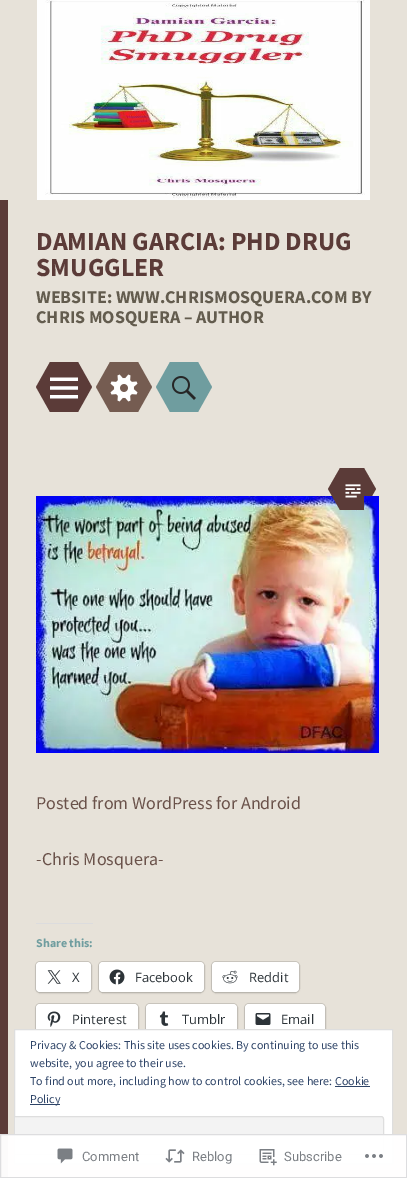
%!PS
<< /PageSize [407 1178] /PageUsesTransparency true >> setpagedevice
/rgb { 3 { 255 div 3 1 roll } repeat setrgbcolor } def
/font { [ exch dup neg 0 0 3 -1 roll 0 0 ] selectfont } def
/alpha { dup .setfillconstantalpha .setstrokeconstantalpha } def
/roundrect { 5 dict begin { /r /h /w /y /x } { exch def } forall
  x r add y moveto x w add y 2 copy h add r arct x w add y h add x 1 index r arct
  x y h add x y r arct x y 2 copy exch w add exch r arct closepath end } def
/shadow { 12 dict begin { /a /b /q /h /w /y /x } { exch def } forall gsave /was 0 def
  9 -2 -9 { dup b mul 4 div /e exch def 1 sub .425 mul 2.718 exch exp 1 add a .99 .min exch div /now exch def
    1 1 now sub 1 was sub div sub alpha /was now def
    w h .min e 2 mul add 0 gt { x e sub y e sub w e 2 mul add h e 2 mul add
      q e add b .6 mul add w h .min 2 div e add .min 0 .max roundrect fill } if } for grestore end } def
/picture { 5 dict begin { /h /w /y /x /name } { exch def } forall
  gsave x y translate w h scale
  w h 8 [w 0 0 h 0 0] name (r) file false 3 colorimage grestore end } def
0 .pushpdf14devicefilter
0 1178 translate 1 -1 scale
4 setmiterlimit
231 226 217 rgb
0 0 407 1178 rectfill
(img/1.rgb) 37 0 333 200 picture
91 59 56 rgb
50 362 28 50 rectfill
78 412 moveto 78 362 lineto 92 387 lineto closepath 50 362 moveto 50 412 lineto 36 387 lineto closepath fill
(img/2.rgb) 50 377 28 22 picture
117 92 81 rgb
110 362 28 50 rectfill
138 412 moveto 138 362 lineto 152 387 lineto closepath 110 362 moveto 110 412 lineto 96 387 lineto closepath fill
(img/3.rgb) 110 374 28 28 picture
111 157 159 rgb
170 362 28 50 rectfill
198 412 moveto 198 362 lineto 212 387 lineto closepath 170 362 moveto 170 412 lineto 156 387 lineto closepath fill
(img/4.rgb) 172 376 24 24 picture
91 59 56 rgb
0 200 8 978 rectfill
364 510 moveto 364 468 lineto 376 489 lineto closepath fill
(img/6.rgb) 36 496 343 257 picture
340 468 24 42 rectfill
340 468 moveto 340 510 lineto 328 489 lineto closepath fill
(img/5.rgb) 345 484 16 14 picture
220 220 222 rgb
36 923 57 1 rectfill
203 199 191 rgb
35.5 961.5 56 31 4.5 roundrect stroke
0 0 0 rgb
36 963 55 30 4 1 0.12 shadow
255 255 255 rgb
36 962 55 30 4 roundrect fill
(img/7.rgb) 47 970 14 14 picture
203 199 191 rgb
98.5 961.5 106 31 4.5 roundrect stroke
0 0 0 rgb
99 963 105 30 4 1 0.12 shadow
255 255 255 rgb
99 962 105 30 4 roundrect fill
(img/8.rgb) 109 969 16 16 picture
203 199 191 rgb
211.5 961.5 88 31 4.5 roundrect stroke
0 0 0 rgb
212 963 87 30 4 1 0.12 shadow
255 255 255 rgb
212 962 87 30 4 roundrect fill
(img/9.rgb) 222 970 16 14 picture
203 199 191 rgb
35.5 1003.5 103 31 4.5 roundrect stroke
0 0 0 rgb
36 1005 102 30 4 1 0.12 shadow
255 255 255 rgb
36 1004 102 30 4 roundrect fill
(img/10.rgb) 47 1011 14 16 picture
203 199 191 rgb
145.5 1003.5 92 31 4.5 roundrect stroke
0 0 0 rgb
146 1005 91 30 4 1 0.12 shadow
255 255 255 rgb
146 1004 91 30 4 roundrect fill
(img/11.rgb) 159 1011 10 15 picture
203 199 191 rgb
244.5 1003.5 81 31 4.5 roundrect stroke
0 0 0 rgb
245 1005 80 30 4 1 0.12 shadow
255 255 255 rgb
245 1004 80 30 4 roundrect fill
(img/12.rgb) 255 1013 16 12 picture
14.5 1029.5 moveto 392.5 1029.5 lineto 392.5 1163.5 lineto 14.5 1163.5 lineto closepath gsave fill grestore
222 222 222 rgb
stroke
46 68 103 rgb
335 1086 35 1 rectfill
30 1104 30 1 rectfill
243 243 243 rgb
15 1116 moveto 381 1116 lineto 382.5 1116 384 1117.5 384 1119 curveto 384 1152 lineto 384 1153.5 382.5 1155 381 1155 curveto 15 1155 lineto closepath fill
gsave
15 1030 377 133 rectclip
222 222 222 rgb
7.5 1116.5 376 38 2.5 roundrect stroke
grestore
0.98 alpha
255 255 255 rgb
0 1134 407 44 rectfill
220 220 222 rgb
0.5 1134.5 406 43 rectstroke
1 alpha
(img/13.rgb) 57 1148 16 16 picture
(img/14.rgb) 165 1149 20 14 picture
(img/15.rgb) 259 1149 18 17 picture
(img/16.rgb) 365 1154 18 4 picture
/SourceSansPro-Bold 26 font
91 59 56 rgb
36 250 moveto (DAMIAN GARCIA: PHD DRUG) show
36 276 moveto (SMUGGLER) show
/SourceSansPro-Bold 18 font
99 92 78 rgb
36 303 moveto (WEBSITE: WWW.CHRISMOSQUERA.COM BY) show
36 323 moveto (CHRIS MOSQUERA – AUTHOR) show
/SourceSansPro-Regular 18 font
106 82 74 rgb
36 809 moveto (Posted from WordPress for Android) show
36 865 moveto (-Chris Mosquera-) show
/SourceSansPro-Bold 12 font
111 157 159 rgb
36 947 moveto (Share this:) show
/OpenSans-Regular 13 font
44 51 56 rgb
[
  [(X) 72 982]
  [(Facebook) 135 982]
  [(Reddit) 249 982]
  [(Pinterest) 72 1024]
  [(Tumblr) 182 1024]
  [(Email) 281 1024]
] { aload pop moveto show } forall
/SourceSansPro-Regular 12 font
46 68 103 rgb
[
  [(Privacy & Cookies: This site uses cookies. By continuing to use this) 30 1049]
  [(website, you agree to their use.) 30 1067]
  [(To find out more, including how to control cookies, see here: Cookie) 30 1085]
  [(Policy) 30 1103]
] { aload pop moveto show } forall
/Roboto-Regular 13 font
123 127 132 rgb
[
  [(Comment) 82 1161]
  [(Reblog) 192 1161]
  [(Subscribe) 284 1161]
] { aload pop moveto show } forall
.poppdf14devicefilter showpage
